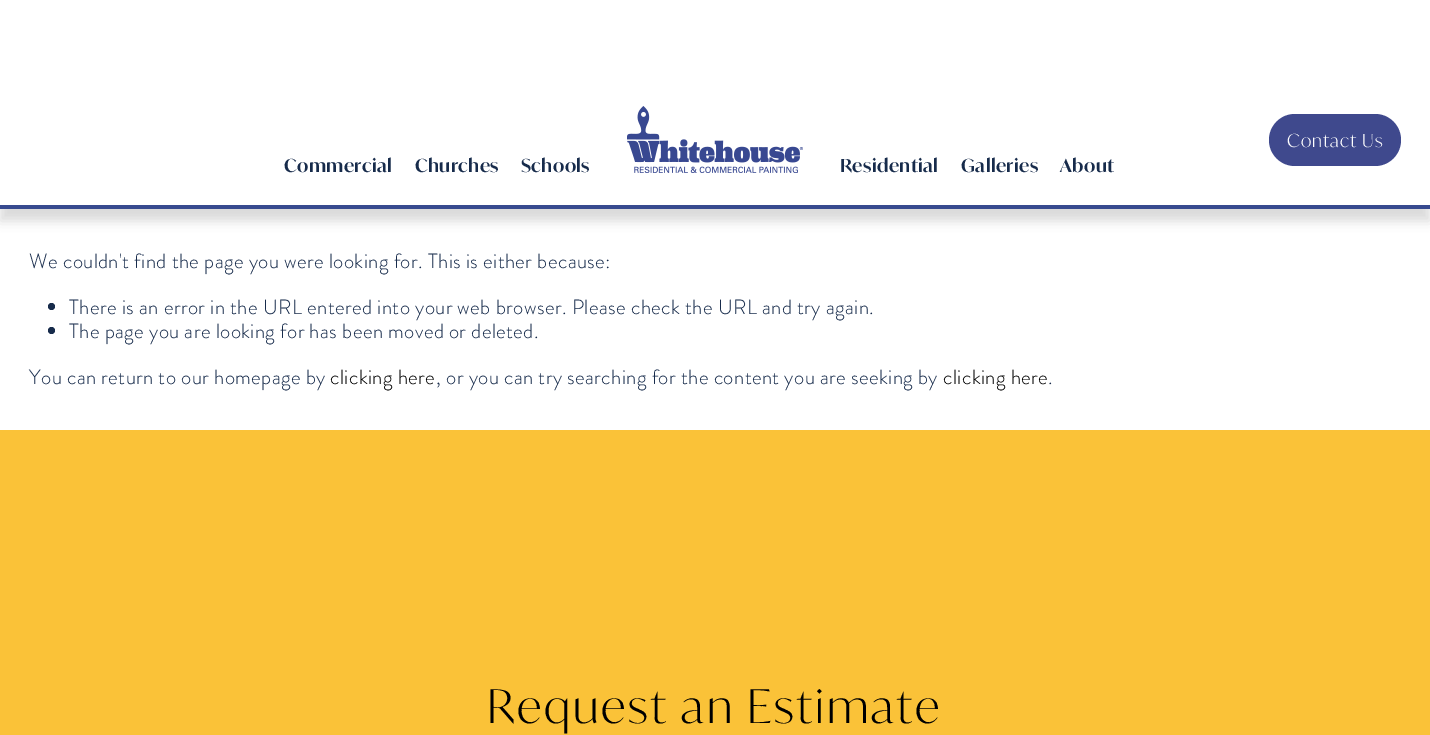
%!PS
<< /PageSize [1430 735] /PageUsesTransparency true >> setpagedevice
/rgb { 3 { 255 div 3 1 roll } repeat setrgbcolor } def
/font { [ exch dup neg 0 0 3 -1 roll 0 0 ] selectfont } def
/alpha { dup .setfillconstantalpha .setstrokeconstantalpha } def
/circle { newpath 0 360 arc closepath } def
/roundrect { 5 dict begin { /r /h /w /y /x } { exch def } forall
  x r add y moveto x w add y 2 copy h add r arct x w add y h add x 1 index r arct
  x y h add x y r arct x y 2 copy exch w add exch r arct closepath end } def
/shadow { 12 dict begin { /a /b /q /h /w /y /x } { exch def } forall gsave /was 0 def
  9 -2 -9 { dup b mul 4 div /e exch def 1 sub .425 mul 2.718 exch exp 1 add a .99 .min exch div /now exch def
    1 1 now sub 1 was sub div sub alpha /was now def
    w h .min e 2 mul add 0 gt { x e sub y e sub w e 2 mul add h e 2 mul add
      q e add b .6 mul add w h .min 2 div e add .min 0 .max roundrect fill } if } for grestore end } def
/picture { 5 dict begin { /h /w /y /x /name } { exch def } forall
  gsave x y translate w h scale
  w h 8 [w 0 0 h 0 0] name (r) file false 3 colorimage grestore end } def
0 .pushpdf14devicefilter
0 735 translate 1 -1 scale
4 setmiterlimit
255 255 255 rgb
0 0 1430 735 rectfill
gsave
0 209 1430 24 rectclip
217 217 217 rgb
0 59 1430 162 0 6 1 shadow
grestore
(img/1.rgb) 627 106 176 67 picture
63 73 141 rgb
1269 114 132 52 26 roundrect fill
55 74 143 rgb
0 205 1430 4 rectfill
23 43 75 rgb
51.5 306.5 3.5 circle fill
51.5 330.5 3.5 circle fill
250 194 56 rgb
0 430 1430 305 rectfill
/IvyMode-SemiBold 18 font
23 43 75 rgb
284 172 moveto 0.4 0 (Commercial) ashow
415 172 moveto 0.4 0 (Churches) ashow
521 172 moveto 0.4 0 (Schools) ashow
/IvyMode-Light 18 font
255 255 255 rgb
1287 147 moveto 1 0 (Contact Us) ashow
/IvyMode-SemiBold 18 font
23 43 75 rgb
840 172 moveto 0.4 0 (Residential) ashow
961 172 moveto 0.4 0 (Galleries) ashow
1060 172 moveto 0.4 0 (About) ashow
/BrandonGrotesque-Light 20.6 font
29 268 moveto 0.4 0 (We couldn't find the page you were looking for. This is either because:) ashow
69 314 moveto 0.4 0 (There is an error in the URL entered into your web browser. Please check the URL and try again.) ashow
69 338 moveto 0.4 0 (The page you are looking for has been moved or deleted.) ashow
29 384 moveto 0.4 0 (You can return to our homepage by) ashow
0 0 0 rgb
330 384 moveto 0.4 0 (clicking here) ashow
23 43 75 rgb
436 384 moveto 0.4 0 (, or you can try searching for the content you are seeking by) ashow
0 0 0 rgb
943 384 moveto 0.4 0 (clicking here) ashow
23 43 75 rgb
1048 384 moveto 0.4 0 (.) ashow
/IvyMode-Light 46.25 font
0 0 0 rgb
487 723 moveto 2.75 0 (Request an Estimate) ashow
.poppdf14devicefilter showpage
